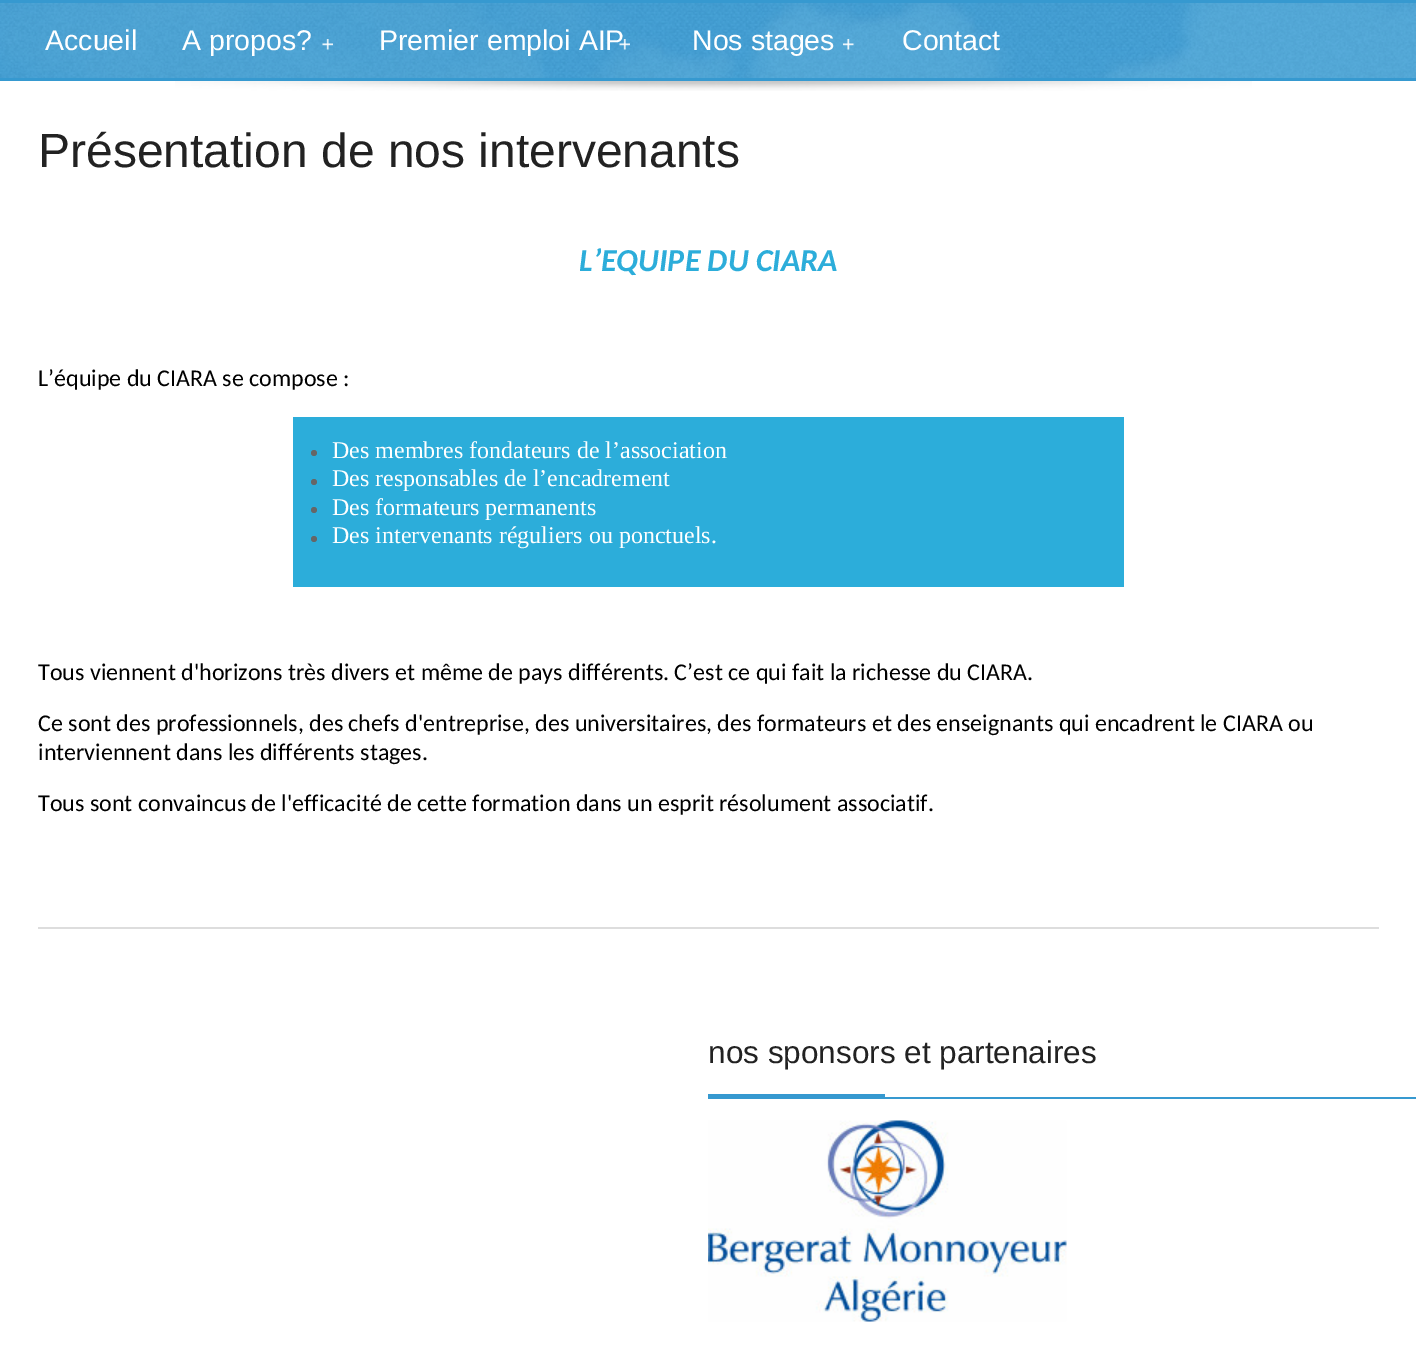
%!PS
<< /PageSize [1416 1362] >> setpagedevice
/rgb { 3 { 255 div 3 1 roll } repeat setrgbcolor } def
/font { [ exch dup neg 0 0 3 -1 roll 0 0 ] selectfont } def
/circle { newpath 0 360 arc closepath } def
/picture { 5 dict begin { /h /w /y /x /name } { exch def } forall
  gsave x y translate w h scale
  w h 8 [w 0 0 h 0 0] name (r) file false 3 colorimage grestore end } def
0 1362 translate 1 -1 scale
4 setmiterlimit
255 255 255 rgb
0 0 1416 1362 rectfill
(img/1.rgb) 0 3 1416 75 picture
(img/2.rgb) 0 3 1416 75 picture
54 153 208 rgb
0 0 1416 3 rectfill
0 78 1416 3 rectfill
(img/3.rgb) 322 39 11 11 picture
(img/4.rgb) 619 39 11 11 picture
(img/5.rgb) 843 39 11 11 picture
(img/6.rgb) 175 81 1077 10 picture
221 221 221 rgb
38 927 1341 2 rectfill
44 173 218 rgb
293 417 831 170 rectfill
102 102 102 rgb
314 453 3 circle fill
314 482 3 circle fill
314 510 3 circle fill
314 539 3 circle fill
54 153 208 rgb
708 1097 708 2 rectfill
708 1094 177 3 rectfill
(img/7.rgb) 708 1120 359 202 picture
/LiberationSans-Regular 28.5 font
255 255 255 rgb
[
  [(Accueil) 45 50]
  [(A propos?) 182 50]
  [(Premier emploi AIP) 379 50]
  [(Nos stages) 692 50]
  [(Contact) 902 50]
] { aload pop moveto show } forall
/LiberationSans-Regular 48 font
34 34 34 rgb
38 167 moveto (Présentation de nos intervenants) show
/Carlito-BoldItalic 32 font
44 173 218 rgb
579 271 moveto (L’EQUIPE DU CIARA) show
/Carlito-Regular 24 font
0 0 0 rgb
38 386 moveto (L’équipe du CIARA se compose :) show
/LiberationSerif-Regular 24 font
255 255 255 rgb
[
  [(Des membres fondateurs de l’association) 332 458]
  [(Des responsables de l’encadrement) 332 486]
  [(Des formateurs permanents) 332 515]
  [(Des intervenants réguliers ou ponctuels.) 332 543]
] { aload pop moveto show } forall
/Carlito-Regular 24 font
0 0 0 rgb
[
  [(Tous viennent d'horizons très divers et même de pays différents. C’est ce qui fait la richesse du CIARA.) 38 680]
  [(Ce sont des professionnels, des chefs d'entreprise, des universitaires, des formateurs et des enseignants qui encadrent le CIARA ou) 38 731]
  [(interviennent dans les différents stages.) 38 760]
  [(Tous sont convaincus de l'efficacité de cette formation dans un esprit résolument associatif.) 38 811]
] { aload pop moveto show } forall
/LiberationSans-Regular 31.5 font
34 34 34 rgb
708 1063 moveto (nos sponsors et partenaires) show
showpage
